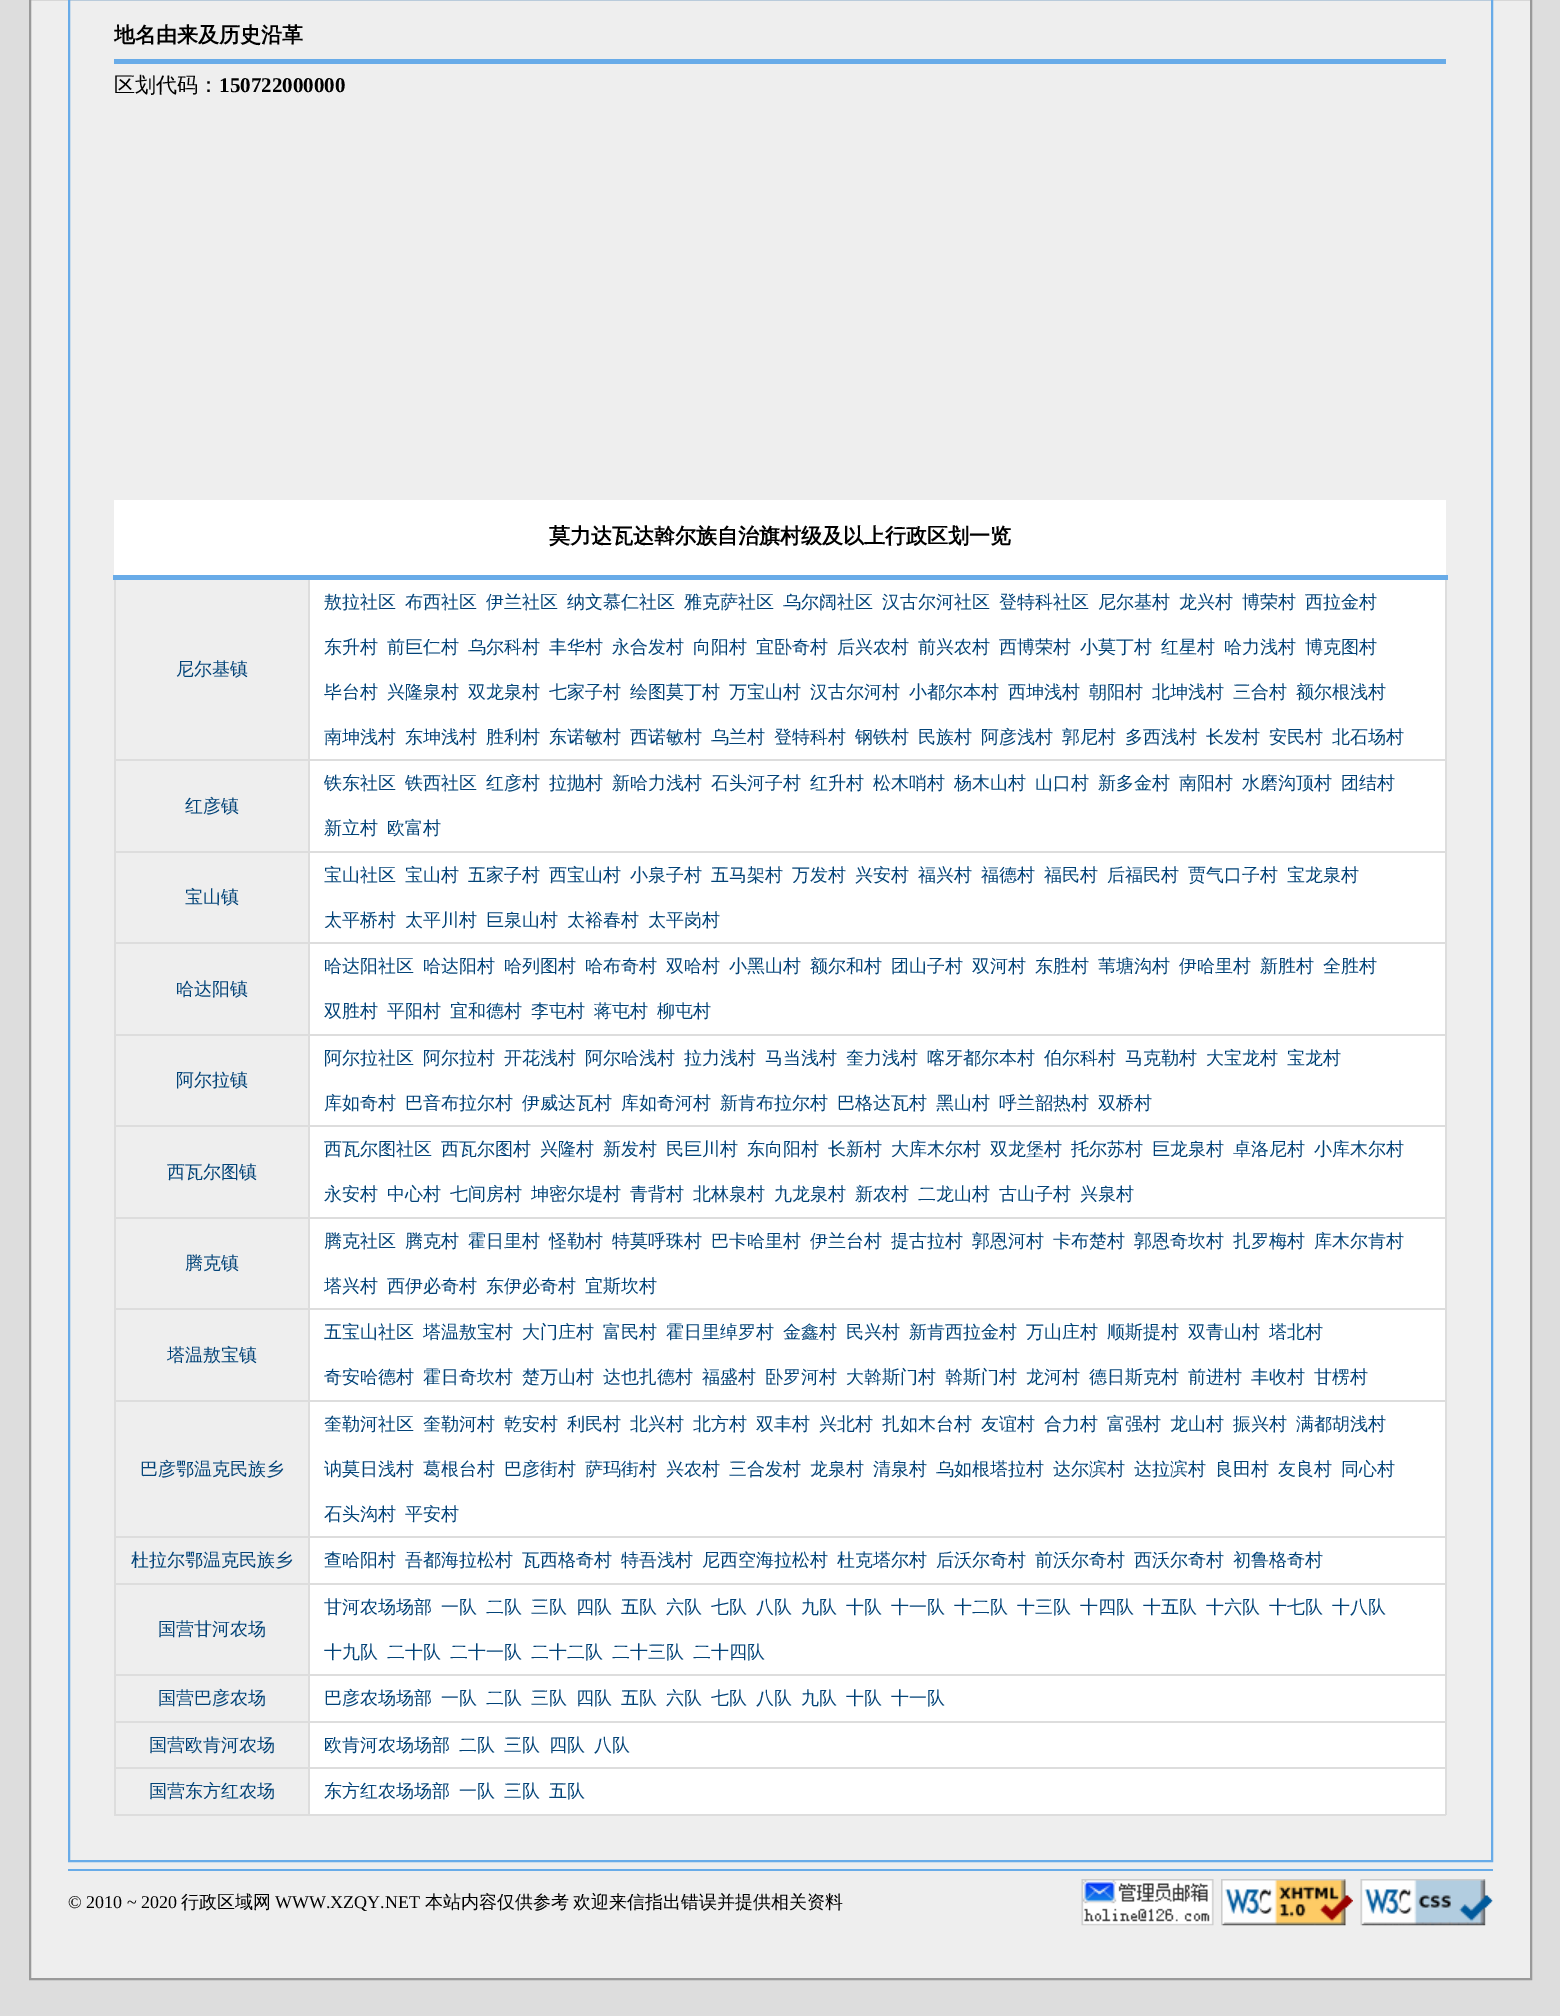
%!PS
<< /PageSize [1560 2016] >> setpagedevice
/rgb { 3 { 255 div 3 1 roll } repeat setrgbcolor } def
/font { [ exch dup neg 0 0 3 -1 roll 0 0 ] selectfont } def
/picture { 5 dict begin { /h /w /y /x /name } { exch def } forall
  gsave x y translate w h scale
  w h 8 [w 0 0 h 0 0] name (r) file false 3 colorimage grestore end } def
0 2016 translate 1 -1 scale
4 setmiterlimit
221 221 221 rgb
0 0 1560 2016 rectfill
238 238 238 rgb
30 -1 moveto 1531 -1 lineto 1531 1979 lineto 30 1979 lineto closepath gsave fill grestore
153 153 153 rgb
2 setlinewidth
stroke
104 171 232 rgb
69 -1 1423 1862 rectstroke
[
  [114 59 1332 5 104 171 232]
  [114 500 1332 1314 255 255 255]
  [308 759 1138 2 221 221 221]
  [308 851 1138 2 221 221 221]
  [308 942 1138 2 221 221 221]
  [308 1034 1138 2 221 221 221]
  [308 1125 1138 2 221 221 221]
  [308 1217 1138 2 221 221 221]
  [308 1308 1138 2 221 221 221]
  [308 1400 1138 2 221 221 221]
  [308 1536 1138 2 221 221 221]
  [308 1583 1138 2 221 221 221]
  [308 1674 1138 2 221 221 221]
  [308 1721 1138 2 221 221 221]
  [308 1767 1138 2 221 221 221]
  [1445 1767 2 48 221 221 221]
  [308 1814 1138 2 221 221 221]
  [308 1767 2 48 221 221 221]
  [114 1767 195 2 221 221 221]
  [308 1721 2 48 221 221 221]
  [114 1721 195 2 221 221 221]
  [308 1674 2 48 221 221 221]
  [114 1674 195 2 221 221 221]
  [308 1583 2 93 221 221 221]
  [114 1583 195 2 221 221 221]
  [308 1536 2 48 221 221 221]
  [114 1536 195 2 221 221 221]
  [308 1400 2 138 221 221 221]
  [114 1400 195 2 221 221 221]
  [308 1308 2 93 221 221 221]
  [114 1308 195 2 221 221 221]
  [308 1217 2 93 221 221 221]
  [114 1217 195 2 221 221 221]
  [308 1125 2 93 221 221 221]
  [114 1125 195 2 221 221 221]
  [308 1034 2 93 221 221 221]
  [114 1034 195 2 221 221 221]
  [308 942 2 93 221 221 221]
  [114 942 195 2 221 221 221]
  [308 851 2 93 221 221 221]
  [114 851 195 2 221 221 221]
  [308 759 2 93 221 221 221]
  [114 759 195 2 221 221 221]
  [308 576 2 185 221 221 221]
  [114 1814 195 2 221 221 221]
  [114 1767 2 48 221 221 221]
  [114 1721 2 48 221 221 221]
  [114 1674 2 48 221 221 221]
  [114 1583 2 93 221 221 221]
  [114 1536 2 48 221 221 221]
  [114 1400 2 138 221 221 221]
  [114 1308 2 93 221 221 221]
  [114 1217 2 93 221 221 221]
  [114 1125 2 93 221 221 221]
  [114 1034 2 93 221 221 221]
  [114 942 2 93 221 221 221]
  [114 851 2 93 221 221 221]
  [114 576 2 276 221 221 221]
  [1445 1721 2 48 221 221 221]
  [1445 1674 2 48 221 221 221]
  [1445 1583 2 93 221 221 221]
  [1445 1536 2 48 221 221 221]
  [1445 1400 2 138 221 221 221]
  [1445 1308 2 93 221 221 221]
  [1445 1217 2 93 221 221 221]
  [1445 1125 2 93 221 221 221]
  [1445 1034 2 93 221 221 221]
  [1445 942 2 93 221 221 221]
  [1445 851 2 93 221 221 221]
  [1445 576 2 276 221 221 221]
  [113 575 1335 5 104 171 232]
  [116 580 192 179 238 238 238]
  [116 761 192 90 238 238 238]
  [116 853 192 89 238 238 238]
  [116 944 192 90 238 238 238]
  [116 1036 192 89 238 238 238]
  [116 1127 192 90 238 238 238]
  [116 1219 192 89 238 238 238]
  [116 1310 192 90 238 238 238]
  [116 1402 192 134 238 238 238]
  [116 1538 192 45 238 238 238]
  [116 1585 192 89 238 238 238]
  [116 1676 192 45 238 238 238]
  [116 1723 192 44 238 238 238]
  [116 1769 192 45 238 238 238]
  [68 1869 1425 2 104 171 232]
] { aload pop rgb rectfill } forall
(img/1.rgb) 1081 1879 133 47 picture
(img/2.rgb) 1221 1879 132 47 picture
(img/3.rgb) 1360 1879 133 47 picture
/WenQuanYiZenHei-Bold 21 font
0 0 0 rgb
114 42 moveto (地名由来及历史沿革) show
/WenQuanYiZenHei-Medium 21 font
114 92 moveto (区划代码：) show
/LiberationSerif-Bold 21 font
219 92 moveto (150722000000) show
/WenQuanYiZenHei-Bold 21 font
549 543 moveto (莫力达瓦达斡尔族自治旗村级及以上行政区划一览) show
/WenQuanYiZenHei-Medium 18 font
2 67 120 rgb
[
  [(尼尔基镇) 176 675]
  [(敖拉社区) 324 608]
  [(布西社区) 405 608]
  [(伊兰社区) 486 608]
  [(纳文慕仁社区) 567 608]
  [(雅克萨社区) 684 608]
  [(乌尔阔社区) 783 608]
  [(汉古尔河社区) 882 608]
  [(登特科社区) 999 608]
  [(尼尔基村) 1098 608]
  [(龙兴村) 1179 608]
  [(博荣村) 1242 608]
  [(西拉金村) 1305 608]
  [(东升村) 324 653]
  [(前巨仁村) 387 653]
  [(乌尔科村) 468 653]
  [(丰华村) 549 653]
  [(永合发村) 612 653]
  [(向阳村) 693 653]
  [(宜卧奇村) 756 653]
  [(后兴农村) 837 653]
  [(前兴农村) 918 653]
  [(西博荣村) 999 653]
  [(小莫丁村) 1080 653]
  [(红星村) 1161 653]
  [(哈力浅村) 1224 653]
  [(博克图村) 1305 653]
  [(毕台村) 324 698]
  [(兴隆泉村) 387 698]
  [(双龙泉村) 468 698]
  [(七家子村) 549 698]
  [(绘图莫丁村) 630 698]
  [(万宝山村) 729 698]
  [(汉古尔河村) 810 698]
  [(小都尔本村) 909 698]
  [(西坤浅村) 1008 698]
  [(朝阳村) 1089 698]
  [(北坤浅村) 1152 698]
  [(三合村) 1233 698]
  [(额尔根浅村) 1296 698]
  [(南坤浅村) 324 743]
  [(东坤浅村) 405 743]
  [(胜利村) 486 743]
  [(东诺敏村) 549 743]
  [(西诺敏村) 630 743]
  [(乌兰村) 711 743]
  [(登特科村) 774 743]
  [(钢铁村) 855 743]
  [(民族村) 918 743]
  [(阿彦浅村) 981 743]
  [(郭尼村) 1062 743]
  [(多西浅村) 1125 743]
  [(长发村) 1206 743]
  [(安民村) 1269 743]
  [(北石场村) 1332 743]
  [(红彦镇) 185 812]
  [(铁东社区) 324 789]
  [(铁西社区) 405 789]
  [(红彦村) 486 789]
  [(拉抛村) 549 789]
  [(新哈力浅村) 612 789]
  [(石头河子村) 711 789]
  [(红升村) 810 789]
  [(松木哨村) 873 789]
  [(杨木山村) 954 789]
  [(山口村) 1035 789]
  [(新多金村) 1098 789]
  [(南阳村) 1179 789]
  [(水磨沟顶村) 1242 789]
  [(团结村) 1341 789]
  [(新立村) 324 834]
  [(欧富村) 387 834]
  [(宝山镇) 185 903]
  [(宝山社区) 324 881]
  [(宝山村) 405 881]
  [(五家子村) 468 881]
  [(西宝山村) 549 881]
  [(小泉子村) 630 881]
  [(五马架村) 711 881]
  [(万发村) 792 881]
  [(兴安村) 855 881]
  [(福兴村) 918 881]
  [(福德村) 981 881]
  [(福民村) 1044 881]
  [(后福民村) 1107 881]
  [(贾气口子村) 1188 881]
  [(宝龙泉村) 1287 881]
  [(太平桥村) 324 926]
  [(太平川村) 405 926]
  [(巨泉山村) 486 926]
  [(太裕春村) 567 926]
  [(太平岗村) 648 926]
  [(哈达阳镇) 176 995]
  [(哈达阳社区) 324 972]
  [(哈达阳村) 423 972]
  [(哈列图村) 504 972]
  [(哈布奇村) 585 972]
  [(双哈村) 666 972]
  [(小黑山村) 729 972]
  [(额尔和村) 810 972]
  [(团山子村) 891 972]
  [(双河村) 972 972]
  [(东胜村) 1035 972]
  [(苇塘沟村) 1098 972]
  [(伊哈里村) 1179 972]
  [(新胜村) 1260 972]
  [(全胜村) 1323 972]
  [(双胜村) 324 1017]
  [(平阳村) 387 1017]
  [(宜和德村) 450 1017]
  [(李屯村) 531 1017]
  [(蒋屯村) 594 1017]
  [(柳屯村) 657 1017]
  [(阿尔拉镇) 176 1086]
  [(阿尔拉社区) 324 1064]
  [(阿尔拉村) 423 1064]
  [(开花浅村) 504 1064]
  [(阿尔哈浅村) 585 1064]
  [(拉力浅村) 684 1064]
  [(马当浅村) 765 1064]
  [(奎力浅村) 846 1064]
  [(喀牙都尔本村) 927 1064]
  [(伯尔科村) 1044 1064]
  [(马克勒村) 1125 1064]
  [(大宝龙村) 1206 1064]
  [(宝龙村) 1287 1064]
  [(库如奇村) 324 1109]
  [(巴音布拉尔村) 405 1109]
  [(伊威达瓦村) 522 1109]
  [(库如奇河村) 621 1109]
  [(新肯布拉尔村) 720 1109]
  [(巴格达瓦村) 837 1109]
  [(黑山村) 936 1109]
  [(呼兰韶热村) 999 1109]
  [(双桥村) 1098 1109]
  [(西瓦尔图镇) 167 1178]
  [(西瓦尔图社区) 324 1155]
  [(西瓦尔图村) 441 1155]
  [(兴隆村) 540 1155]
  [(新发村) 603 1155]
  [(民巨川村) 666 1155]
  [(东向阳村) 747 1155]
  [(长新村) 828 1155]
  [(大库木尔村) 891 1155]
  [(双龙堡村) 990 1155]
  [(托尔苏村) 1071 1155]
  [(巨龙泉村) 1152 1155]
  [(卓洛尼村) 1233 1155]
  [(小库木尔村) 1314 1155]
  [(永安村) 324 1200]
  [(中心村) 387 1200]
  [(七间房村) 450 1200]
  [(坤密尔堤村) 531 1200]
  [(青背村) 630 1200]
  [(北林泉村) 693 1200]
  [(九龙泉村) 774 1200]
  [(新农村) 855 1200]
  [(二龙山村) 918 1200]
  [(古山子村) 999 1200]
  [(兴泉村) 1080 1200]
  [(腾克镇) 185 1269]
  [(腾克社区) 324 1247]
  [(腾克村) 405 1247]
  [(霍日里村) 468 1247]
  [(怪勒村) 549 1247]
  [(特莫呼珠村) 612 1247]
  [(巴卡哈里村) 711 1247]
  [(伊兰台村) 810 1247]
  [(提古拉村) 891 1247]
  [(郭恩河村) 972 1247]
  [(卡布楚村) 1053 1247]
  [(郭恩奇坎村) 1134 1247]
  [(扎罗梅村) 1233 1247]
  [(库木尔肯村) 1314 1247]
  [(塔兴村) 324 1292]
  [(西伊必奇村) 387 1292]
  [(东伊必奇村) 486 1292]
  [(宜斯坎村) 585 1292]
  [(塔温敖宝镇) 167 1361]
  [(五宝山社区) 324 1338]
  [(塔温敖宝村) 423 1338]
  [(大门庄村) 522 1338]
  [(富民村) 603 1338]
  [(霍日里绰罗村) 666 1338]
  [(金鑫村) 783 1338]
  [(民兴村) 846 1338]
  [(新肯西拉金村) 909 1338]
  [(万山庄村) 1026 1338]
  [(顺斯提村) 1107 1338]
  [(双青山村) 1188 1338]
  [(塔北村) 1269 1338]
  [(奇安哈德村) 324 1383]
  [(霍日奇坎村) 423 1383]
  [(楚万山村) 522 1383]
  [(达也扎德村) 603 1383]
  [(福盛村) 702 1383]
  [(卧罗河村) 765 1383]
  [(大斡斯门村) 846 1383]
  [(斡斯门村) 945 1383]
  [(龙河村) 1026 1383]
  [(德日斯克村) 1089 1383]
  [(前进村) 1188 1383]
  [(丰收村) 1251 1383]
  [(甘楞村) 1314 1383]
  [(巴彦鄂温克民族乡) 140 1475]
  [(奎勒河社区) 324 1430]
  [(奎勒河村) 423 1430]
  [(乾安村) 504 1430]
  [(利民村) 567 1430]
  [(北兴村) 630 1430]
  [(北方村) 693 1430]
  [(双丰村) 756 1430]
  [(兴北村) 819 1430]
  [(扎如木台村) 882 1430]
  [(友谊村) 981 1430]
  [(合力村) 1044 1430]
  [(富强村) 1107 1430]
  [(龙山村) 1170 1430]
  [(振兴村) 1233 1430]
  [(满都胡浅村) 1296 1430]
  [(讷莫日浅村) 324 1475]
  [(葛根台村) 423 1475]
  [(巴彦街村) 504 1475]
  [(萨玛街村) 585 1475]
  [(兴农村) 666 1475]
  [(三合发村) 729 1475]
  [(龙泉村) 810 1475]
  [(清泉村) 873 1475]
  [(乌如根塔拉村) 936 1475]
  [(达尔滨村) 1053 1475]
  [(达拉滨村) 1134 1475]
  [(良田村) 1215 1475]
  [(友良村) 1278 1475]
  [(同心村) 1341 1475]
  [(石头沟村) 324 1520]
  [(平安村) 405 1520]
  [(杜拉尔鄂温克民族乡) 131 1566]
  [(查哈阳村) 324 1566]
  [(吾都海拉松村) 405 1566]
  [(瓦西格奇村) 522 1566]
  [(特吾浅村) 621 1566]
  [(尼西空海拉松村) 702 1566]
  [(杜克塔尔村) 837 1566]
  [(后沃尔奇村) 936 1566]
  [(前沃尔奇村) 1035 1566]
  [(西沃尔奇村) 1134 1566]
  [(初鲁格奇村) 1233 1566]
  [(国营甘河农场) 158 1635]
  [(甘河农场场部) 324 1613]
  [(一队) 441 1613]
  [(二队) 486 1613]
  [(三队) 531 1613]
  [(四队) 576 1613]
  [(五队) 621 1613]
  [(六队) 666 1613]
  [(七队) 711 1613]
  [(八队) 756 1613]
  [(九队) 801 1613]
  [(十队) 846 1613]
  [(十一队) 891 1613]
  [(十二队) 954 1613]
  [(十三队) 1017 1613]
  [(十四队) 1080 1613]
  [(十五队) 1143 1613]
  [(十六队) 1206 1613]
  [(十七队) 1269 1613]
  [(十八队) 1332 1613]
  [(十九队) 324 1658]
  [(二十队) 387 1658]
  [(二十一队) 450 1658]
  [(二十二队) 531 1658]
  [(二十三队) 612 1658]
  [(二十四队) 693 1658]
  [(国营巴彦农场) 158 1704]
  [(巴彦农场场部) 324 1704]
  [(一队) 441 1704]
  [(二队) 486 1704]
  [(三队) 531 1704]
  [(四队) 576 1704]
  [(五队) 621 1704]
  [(六队) 666 1704]
  [(七队) 711 1704]
  [(八队) 756 1704]
  [(九队) 801 1704]
  [(十队) 846 1704]
  [(十一队) 891 1704]
  [(国营欧肯河农场) 149 1751]
  [(欧肯河农场场部) 324 1751]
  [(二队) 459 1751]
  [(三队) 504 1751]
  [(四队) 549 1751]
  [(八队) 594 1751]
  [(国营东方红农场) 149 1797]
  [(东方红农场场部) 324 1797]
  [(一队) 459 1797]
  [(三队) 504 1797]
  [(五队) 549 1797]
] { aload pop moveto show } forall
/LiberationSerif-Regular 18 font
0 0 0 rgb
68 1908 moveto (© 2010 ~ 2020) show
/WenQuanYiZenHei-Medium 18 font
181 1908 moveto (行政区域网) show
/LiberationSerif-Regular 18 font
275 1908 moveto (WWW.XZQY.NET) show
/WenQuanYiZenHei-Medium 18 font
425 1908 moveto (本站内容仅供参考) show
573 1908 moveto (欢迎来信指出错误并提供相关资料) show
showpage
